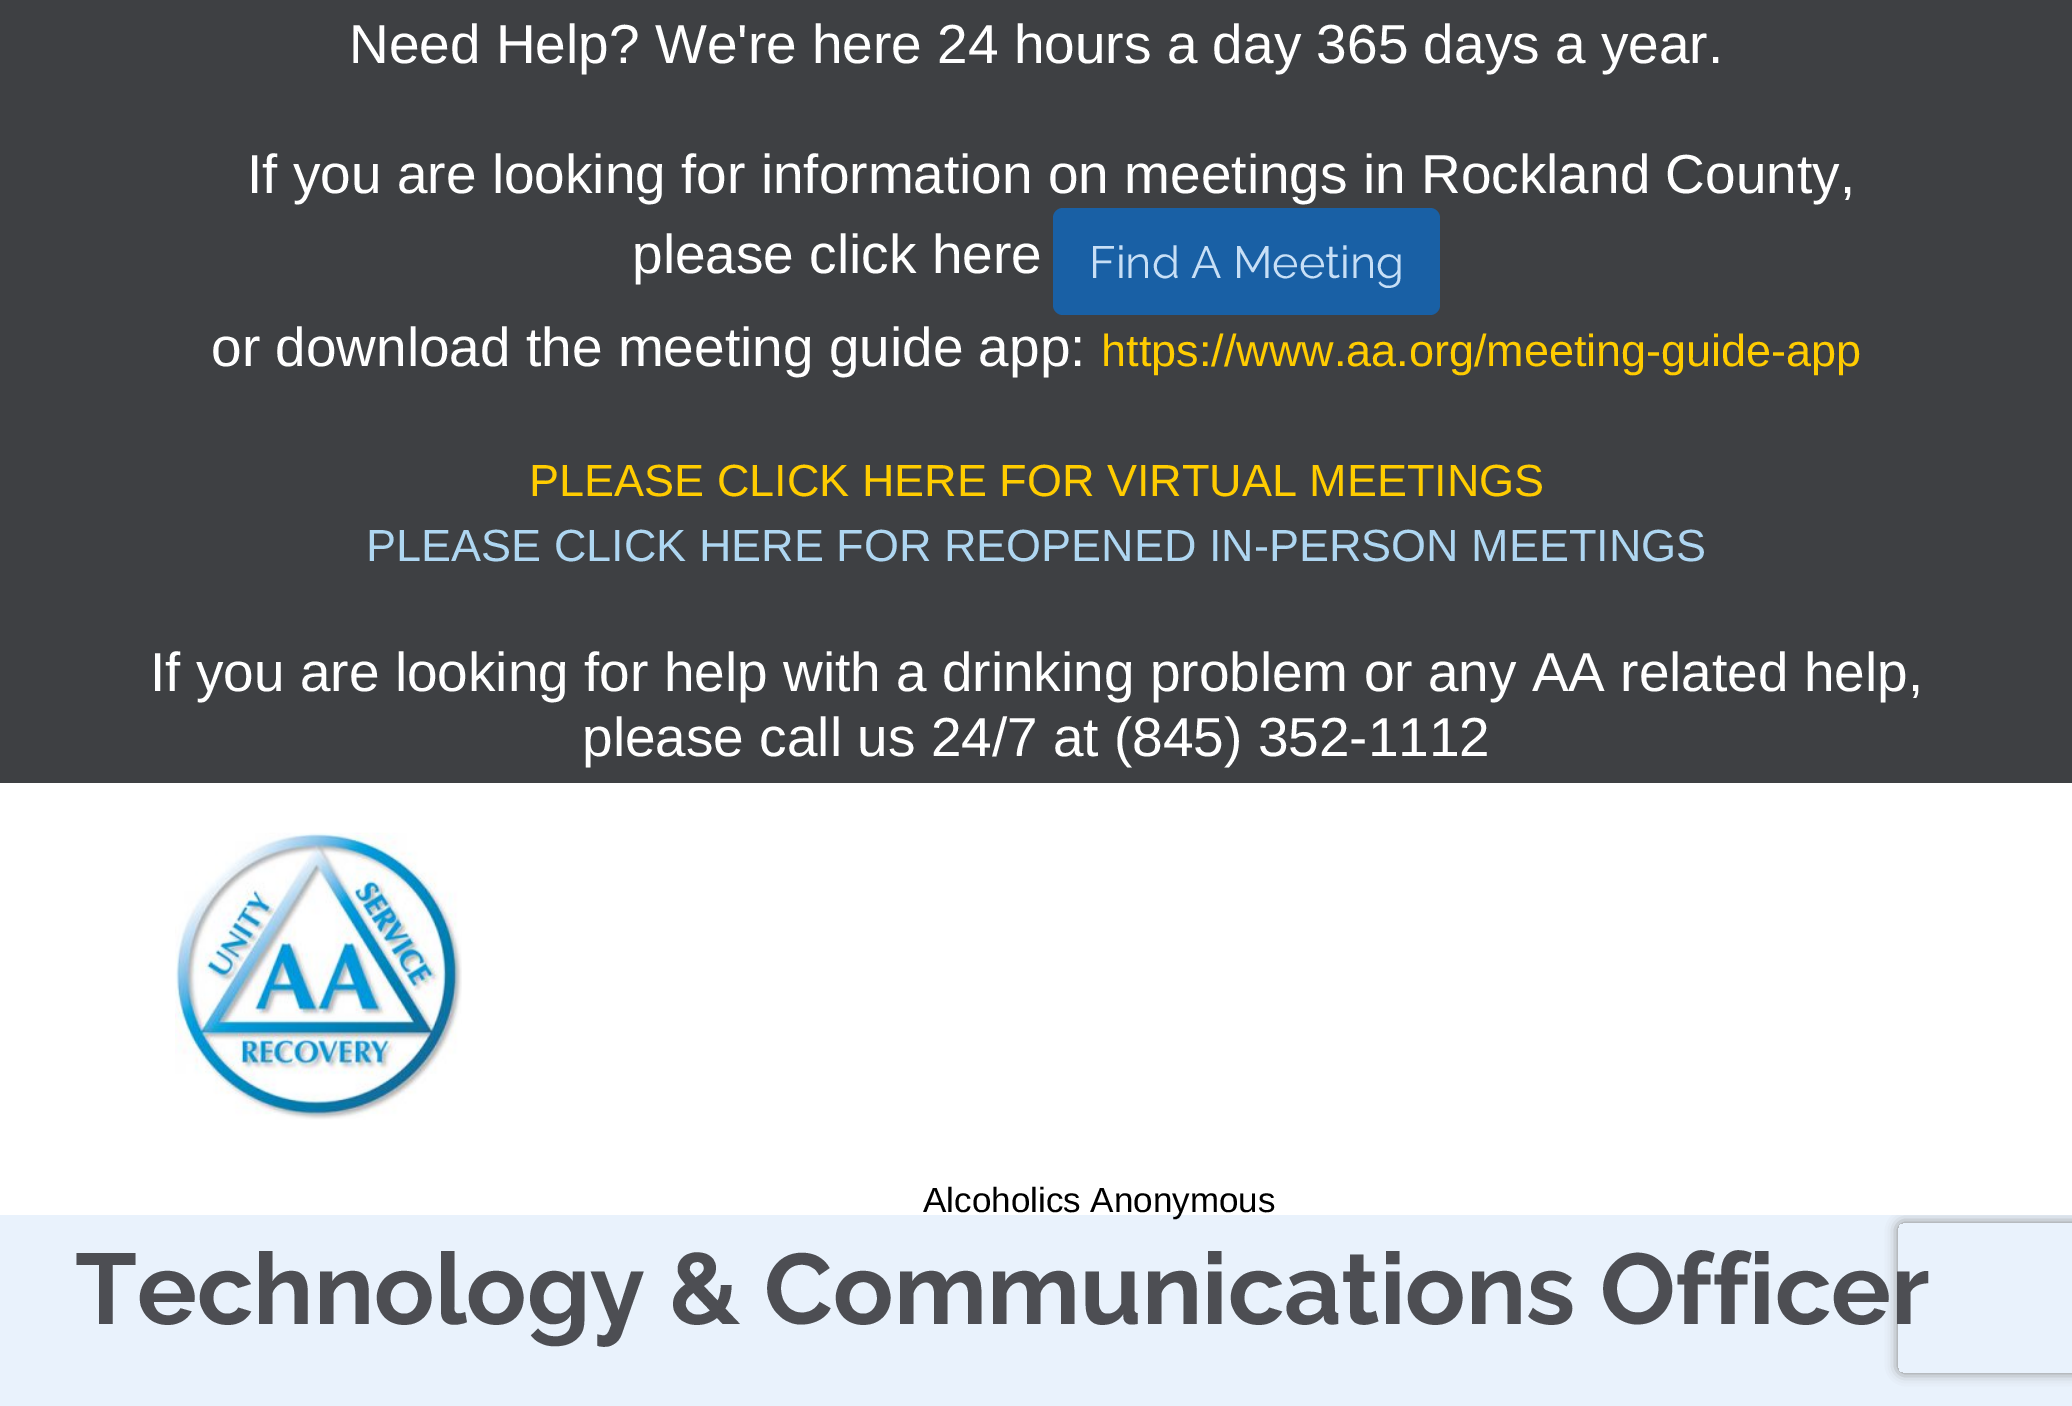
%!PS
<< /PageSize [2072 1406] /PageUsesTransparency true >> setpagedevice
/rgb { 3 { 255 div 3 1 roll } repeat setrgbcolor } def
/font { [ exch dup neg 0 0 3 -1 roll 0 0 ] selectfont } def
/alpha { dup .setfillconstantalpha .setstrokeconstantalpha } def
/roundrect { 5 dict begin { /r /h /w /y /x } { exch def } forall
  x r add y moveto x w add y 2 copy h add r arct x w add y h add x 1 index r arct
  x y h add x y r arct x y 2 copy exch w add exch r arct closepath end } def
/shadow { 12 dict begin { /a /b /q /h /w /y /x } { exch def } forall gsave /was 0 def
  9 -2 -9 { dup b mul 4 div /e exch def 1 sub .425 mul 2.718 exch exp 1 add a .99 .min exch div /now exch def
    1 1 now sub 1 was sub div sub alpha /was now def
    w h .min e 2 mul add 0 gt { x e sub y e sub w e 2 mul add h e 2 mul add
      q e add b .6 mul add w h .min 2 div e add .min 0 .max roundrect fill } if } for grestore end } def
/picture { 5 dict begin { /h /w /y /x /name } { exch def } forall
  gsave x y translate w h scale
  w h 8 [w 0 0 h 0 0] name (r) file false 3 colorimage grestore end } def
0 .pushpdf14devicefilter
0 1406 translate 1 -1 scale
4 setmiterlimit
233 242 252 rgb
0 0 2072 1406 rectfill
gsave
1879 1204 moveto 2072 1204 lineto 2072 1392 lineto 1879 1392 lineto closepath 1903 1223 moveto 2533 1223 lineto 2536 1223 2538 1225 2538 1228 curveto 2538 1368 lineto 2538 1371 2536 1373 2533 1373 curveto 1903 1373 lineto 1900 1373 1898 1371 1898 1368 curveto 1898 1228 lineto 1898 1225 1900 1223 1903 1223 curveto closepath eoclip newpath
128 128 128 rgb
1898 1223 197 150 5 6 1 shadow
grestore
255 255 255 rgb
0 783 2072 432 rectfill
62 64 67 rgb
0 0 2072 783 rectfill
25 96 165 rgb
1053 208 387 107 10 roundrect fill
(img/1.rgb) 175 832 287 288 picture
/LiberationSans-Regular 55 font
255 255 255 rgb
[
  [(Need Help? We're here 24 hours a day 365 days a year.) 349 63]
  [(If you are looking for information on meetings in Rockland County,) 247 193]
  [(please click here) 632 273]
] { aload pop moveto show } forall
/Raleway-Regular 45 font
199 223 246 rgb
1089 278 moveto (Find A Meeting) show
/LiberationSans-Regular 55 font
255 255 255 rgb
211 366 moveto (or download the meeting guide app:) show
/LiberationSans-Regular 45 font
255 204 0 rgb
1101 366 moveto (https://www.aa.org/meeting-guide-app) show
529 496 moveto (PLEASE CLICK HERE FOR VIRTUAL MEETINGS) show
174 214 241 rgb
366 561 moveto (PLEASE CLICK HERE FOR REOPENED IN-PERSON MEETINGS) show
/LiberationSans-Regular 55 font
255 255 255 rgb
150 691 moveto (If you are looking for help with a drinking problem or any AA related help,) show
582 756 moveto (please call us 24/7 at \(845\) 352-1112) show
/LiberationSans-Regular 35 font
0 0 0 rgb
923 1212 moveto (Alcoholics Anonymous) show
/Raleway-Bold 100 font
77 78 83 rgb
75 1324 moveto (Technology & Communications Officer) show
.poppdf14devicefilter showpage
